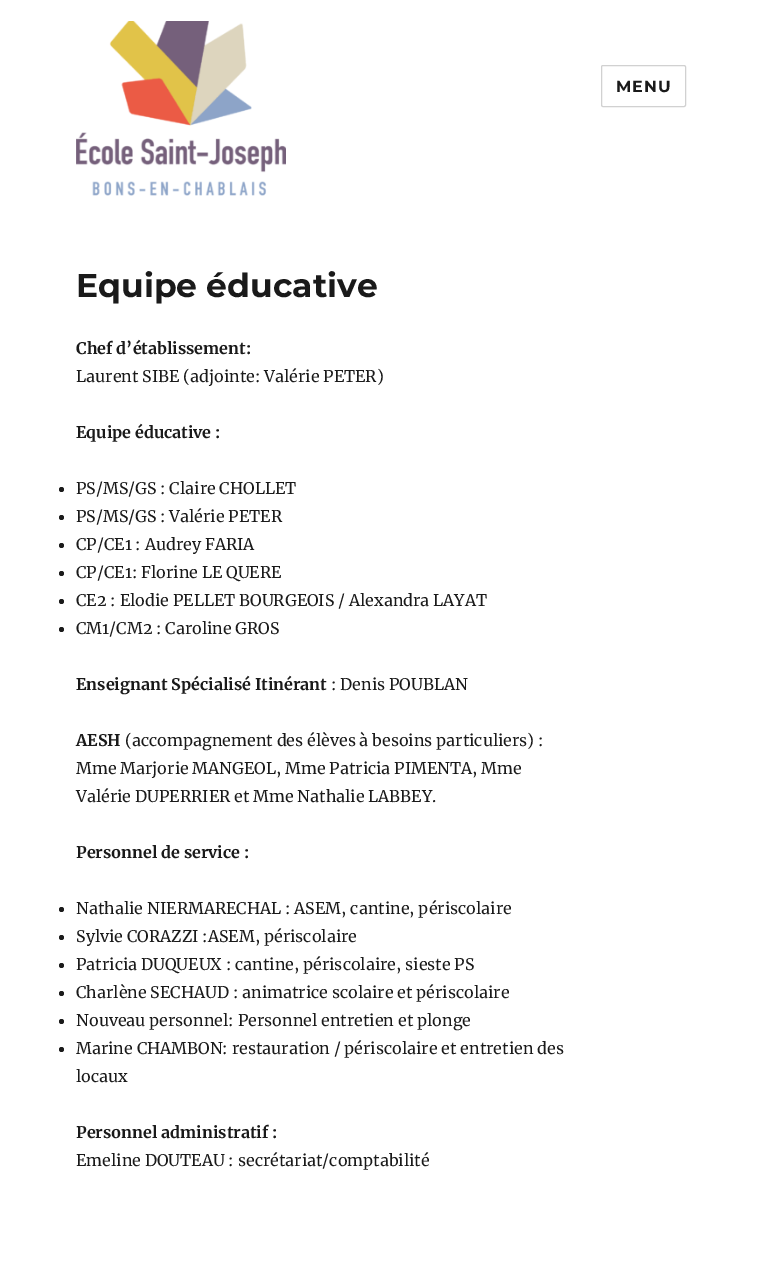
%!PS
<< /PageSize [762 1261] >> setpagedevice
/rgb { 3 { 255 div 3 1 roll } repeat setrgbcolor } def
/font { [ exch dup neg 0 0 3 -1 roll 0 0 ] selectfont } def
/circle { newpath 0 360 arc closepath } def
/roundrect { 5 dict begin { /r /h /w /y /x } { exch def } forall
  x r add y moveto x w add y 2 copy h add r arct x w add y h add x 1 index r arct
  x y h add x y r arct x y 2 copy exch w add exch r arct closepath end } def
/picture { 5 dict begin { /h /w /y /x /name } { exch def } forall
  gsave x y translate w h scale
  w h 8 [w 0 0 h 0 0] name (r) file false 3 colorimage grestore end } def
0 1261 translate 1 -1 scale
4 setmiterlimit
255 255 255 rgb
0 0 762 1261 rectfill
(img/1.rgb) 76 21 210 175 picture
209 209 209 rgb
601.5 65.5 84 41 1.5 roundrect stroke
26 26 26 rgb
61.5 489.5 2.5 circle fill
61.5 517.5 2.5 circle fill
61.5 545.5 2.5 circle fill
61.5 573.5 2.5 circle fill
61.5 601.5 2.5 circle fill
61.5 629.5 2.5 circle fill
61.5 909.5 2.5 circle fill
61.5 937.5 2.5 circle fill
61.5 965.5 2.5 circle fill
61.5 993.5 2.5 circle fill
61.5 1021.5 2.5 circle fill
61.5 1049.5 2.5 circle fill
/Montserrat-Thin 16 font
616 92 moveto 1 0 (MENU) ashow
/Montserrat-Thin 33 font
76 297 moveto (Equipe éducative) show
/Merriweather-Bold 16 font
76 354 moveto (Chef d’établissement:) show
/Merriweather-Regular 16 font
76 382 moveto (Laurent SIBE \(adjointe: Valérie PETER\)) show
/Merriweather-Bold 16 font
76 438 moveto (Equipe éducative :) show
/Merriweather-Regular 16 font
[
  [(PS/MS/GS : Claire CHOLLET) 76 494]
  [(PS/MS/GS : Valérie PETER) 76 522]
  [(CP/CE1 : Audrey FARIA) 76 550]
  [(CP/CE1: Florine LE QUERE) 76 578]
  [(CE2 : Elodie PELLET BOURGEOIS / Alexandra LAYAT) 76 606]
  [(CM1/CM2 : Caroline GROS) 76 634]
] { aload pop moveto show } forall
/Merriweather-Bold 16 font
76 690 moveto (Enseignant Spécialisé Itinérant) show
/Merriweather-Regular 16 font
331 690 moveto (: Denis POUBLAN) show
/Merriweather-Bold 16 font
76 746 moveto (AESH) show
/Merriweather-Regular 16 font
[
  [(\(accompagnement des élèves à besoins particuliers\) :) 125 746]
  [(Mme Marjorie MANGEOL, Mme Patricia PIMENTA, Mme) 76 774]
  [(Valérie DUPERRIER et Mme Nathalie LABBEY.) 76 802]
] { aload pop moveto show } forall
/Merriweather-Bold 16 font
76 858 moveto (Personnel de service :) show
/Merriweather-Regular 16 font
[
  [(Nathalie NIERMARECHAL : ASEM, cantine, périscolaire) 76 914]
  [(Sylvie CORAZZI :ASEM, périscolaire) 76 942]
  [(Patricia DUQUEUX : cantine, périscolaire, sieste PS) 76 970]
  [(Charlène SECHAUD : animatrice scolaire et périscolaire) 76 998]
  [(Nouveau personnel: Personnel entretien et plonge) 76 1026]
  [(Marine CHAMBON: restauration / périscolaire et entretien des) 76 1054]
  [(locaux) 76 1082]
] { aload pop moveto show } forall
/Merriweather-Bold 16 font
76 1138 moveto (Personnel administratif :) show
/Merriweather-Regular 16 font
76 1166 moveto (Emeline DOUTEAU : secrétariat/comptabilité) show
showpage
